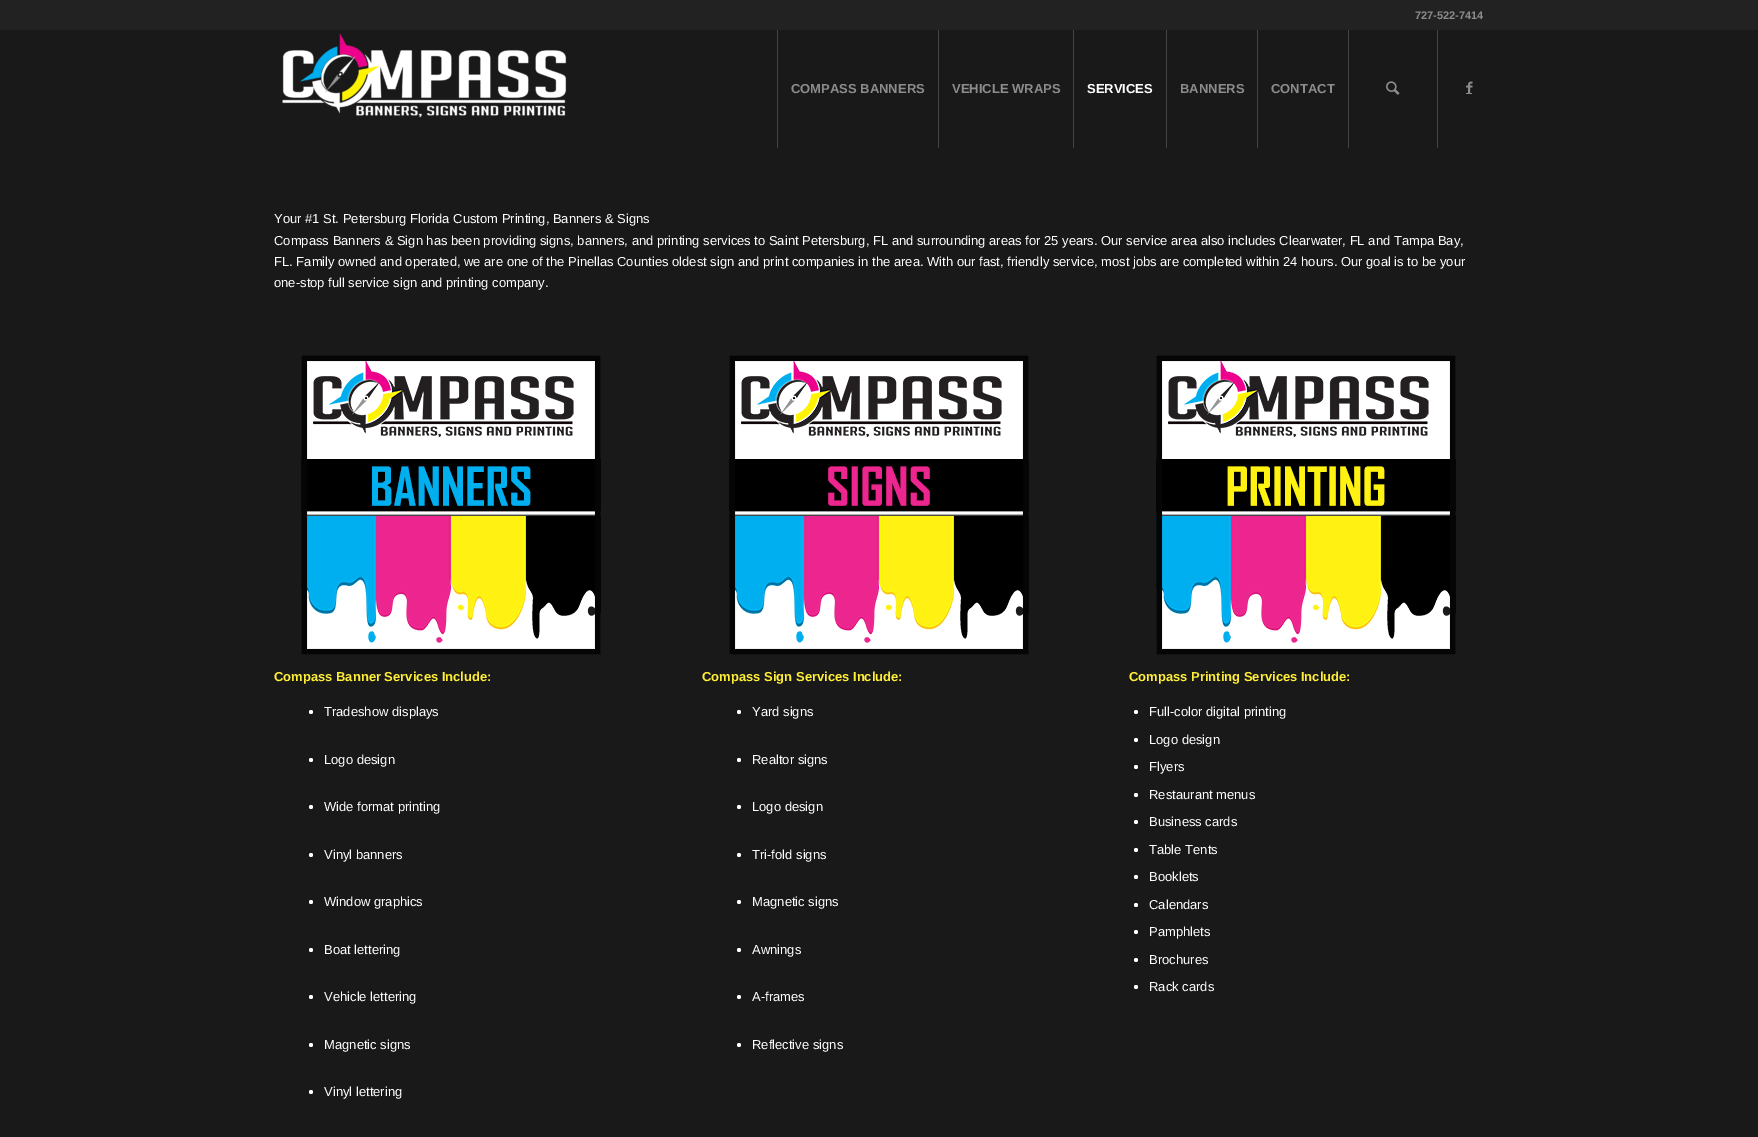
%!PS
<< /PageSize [1758 1137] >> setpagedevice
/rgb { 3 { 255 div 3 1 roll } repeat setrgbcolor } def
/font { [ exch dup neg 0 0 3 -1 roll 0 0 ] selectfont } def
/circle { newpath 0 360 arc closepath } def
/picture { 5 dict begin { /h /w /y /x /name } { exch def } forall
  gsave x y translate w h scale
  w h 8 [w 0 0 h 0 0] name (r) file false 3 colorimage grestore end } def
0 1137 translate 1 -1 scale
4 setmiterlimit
25 25 25 rgb
0 0 1758 1137 rectfill
34 34 34 rgb
0 0 1758 30 rectfill
(img/1.rgb) 282 33 285 85 picture
[
  [777 30 1 118 68 68 68]
  [938 30 1 118 68 68 68]
  [1073 30 1 118 68 68 68]
  [1166 30 1 118 68 68 68]
  [1257 30 1 118 68 68 68]
  [1437 30 1 118 68 68 68]
  [1348 30 1 118 68 68 68]
] { aload pop rgb rectfill } forall
(img/2.rgb) 1386 81 14 14 picture
(img/3.rgb) 1466 81 7 12 picture
140 140 140 rgb
1466 93 6 1 rectfill
(img/4.rgb) 301 355 300 300 picture
255 255 255 rgb
311 712 2 circle fill
311 760 2 circle fill
311 807 2 circle fill
311 855 2 circle fill
311 902 2 circle fill
311 950 2 circle fill
311 997 2 circle fill
311 1045 2 circle fill
311 1092 2 circle fill
(img/5.rgb) 729 355 300 300 picture
739 712 2 circle fill
739 760 2 circle fill
739 807 2 circle fill
739 855 2 circle fill
739 902 2 circle fill
739 950 2 circle fill
739 997 2 circle fill
739 1045 2 circle fill
(img/6.rgb) 1156 355 300 300 picture
1136 712 2 circle fill
1136 740 2 circle fill
1136 767 2 circle fill
1136 795 2 circle fill
1136 822 2 circle fill
1136 850 2 circle fill
1136 877 2 circle fill
1136 905 2 circle fill
1136 932 2 circle fill
1136 960 2 circle fill
1136 987 2 circle fill
/LiberationSans-Bold 11 font
140 140 140 rgb
1415 19 moveto (727-522-7414) show
/LiberationSans-Bold 13 font
791 93 moveto (COMPASS BANNERS) show
952 93 moveto (VEHICLE WRAPS) show
255 255 255 rgb
1087 93 moveto (SERVICES) show
140 140 140 rgb
1180 93 moveto (BANNERS) show
1271 93 moveto (CONTACT) show
/LiberationSans-Regular 13 font
255 255 255 rgb
[
  [(Your #1 St. Petersburg Florida Custom Printing, Banners & Signs) 274 223]
  [(Compass Banners & Sign has been providing signs, banners, and printing services to Saint Petersburg, FL and surrounding areas for 25 years. Our service area also includes Clearwater, FL and Tampa Bay,) 274 245]
  [(FL. Family owned and operated, we are one of the Pinellas Counties oldest sign and print companies in the area. With our fast, friendly service, most jobs are completed within 24 hours. Our goal is to be your) 274 266]
  [(one-stop full service sign and printing company.) 274 287]
] { aload pop moveto show } forall
/LiberationSans-Bold 13 font
255 238 56 rgb
274 681 moveto (Compass Banner Services Include:) show
/LiberationSans-Regular 13 font
255 255 255 rgb
[
  [(Tradeshow displays) 324 716]
  [(Logo design) 324 764]
  [(Wide format printing) 324 811]
  [(Vinyl banners) 324 859]
  [(Window graphics) 324 906]
  [(Boat lettering) 324 954]
  [(Vehicle lettering) 324 1001]
  [(Magnetic signs) 324 1049]
  [(Vinyl lettering) 324 1096]
] { aload pop moveto show } forall
/LiberationSans-Bold 13 font
255 238 56 rgb
702 681 moveto (Compass Sign Services Include:) show
/LiberationSans-Regular 13 font
255 255 255 rgb
[
  [(Yard signs) 752 716]
  [(Realtor signs) 752 764]
  [(Logo design) 752 811]
  [(Tri-fold signs) 752 859]
  [(Magnetic signs) 752 906]
  [(Awnings) 752 954]
  [(A-frames) 752 1001]
  [(Reflective signs) 752 1049]
] { aload pop moveto show } forall
/LiberationSans-Bold 13 font
255 238 56 rgb
1129 681 moveto (Compass Printing Services Include:) show
/LiberationSans-Regular 13 font
255 255 255 rgb
[
  [(Full-color digital printing) 1149 716]
  [(Logo design) 1149 744]
  [(Flyers) 1149 771]
  [(Restaurant menus) 1149 799]
  [(Business cards) 1149 826]
  [(Table Tents) 1149 854]
  [(Booklets) 1149 881]
  [(Calendars) 1149 909]
  [(Pamphlets) 1149 936]
  [(Brochures) 1149 964]
  [(Rack cards) 1149 991]
] { aload pop moveto show } forall
showpage
